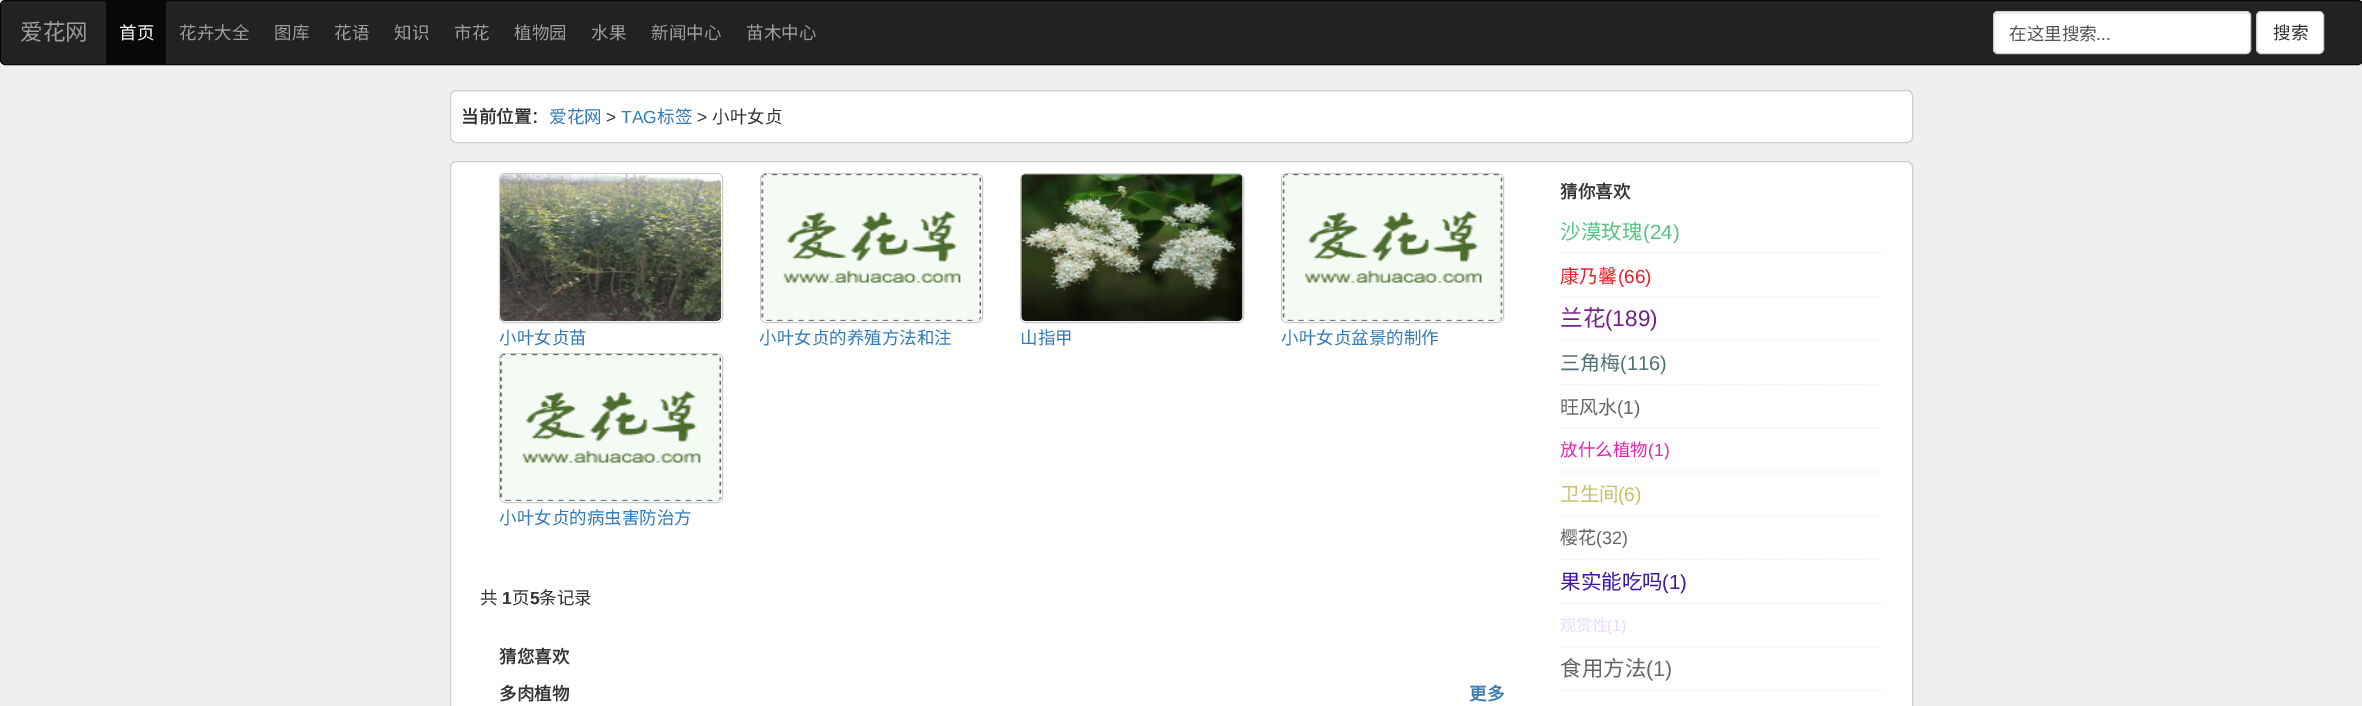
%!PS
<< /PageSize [2362 706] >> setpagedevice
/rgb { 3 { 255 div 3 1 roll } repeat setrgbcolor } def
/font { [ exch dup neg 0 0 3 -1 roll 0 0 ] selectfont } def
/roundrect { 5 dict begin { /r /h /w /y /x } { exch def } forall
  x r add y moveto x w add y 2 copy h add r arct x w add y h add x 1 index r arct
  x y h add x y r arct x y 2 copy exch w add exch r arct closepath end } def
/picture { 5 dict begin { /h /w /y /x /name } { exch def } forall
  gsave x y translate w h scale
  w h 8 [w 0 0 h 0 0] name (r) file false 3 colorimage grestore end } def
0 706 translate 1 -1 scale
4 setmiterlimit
239 239 239 rgb
0 0 2362 706 rectfill
34 34 34 rgb
0.5 0.5 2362 64 4.5 roundrect gsave fill grestore
8 8 8 rgb
stroke
106 1 60 63 rectfill
255 255 255 rgb
1993 11 258 43 5 roundrect fill
236 236 236 rgb
1998 14 moveto 2246 14 lineto 2248 14 2250 15 2250 18 curveto 2250 17 lineto 2250 15 2248 13 2246 13 curveto 1998 13 lineto 1996 13 1994 15 1994 17 curveto 1994 18 lineto 1994 15 1995 14 1998 14 curveto closepath fill
204 204 204 rgb
1993.5 11.5 257 42 4.5 roundrect stroke
255 255 255 rgb
2256.5 11.5 67 42 4.5 roundrect gsave fill grestore
204 204 204 rgb
stroke
255 255 255 rgb
450.5 90.5 1462 52 5.5 roundrect gsave fill grestore
204 204 204 rgb
stroke
255 255 255 rgb
450.5 161.5 1462 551 5.5 roundrect gsave fill grestore
204 204 204 rgb
stroke
499.5 173.5 223 149 5.5 roundrect stroke
(img/1.rgb) 500 174 222 148 picture
760.5 173.5 222 149 5.5 roundrect stroke
(img/2.rgb) 761 173 221 149 picture
1020.5 173.5 223 149 5.5 roundrect stroke
(img/3.rgb) 1021 173 222 149 picture
1281.5 173.5 222 149 5.5 roundrect stroke
(img/4.rgb) 1282 173 221 149 picture
499.5 353.5 223 149 5.5 roundrect stroke
(img/5.rgb) 500 353 222 149 picture
239 239 239 rgb
1.2 setlinewidth
[1.25 1.25] 0 setdash
1560 253 moveto 1882.5 253 lineto stroke
1560 297 moveto 1882.5 297 lineto stroke
1560 340.5 moveto 1882.5 340.5 lineto stroke
1560 384.5 moveto 1882.5 384.5 lineto stroke
1560 428 moveto 1882.5 428 lineto stroke
1560 472 moveto 1882.5 472 lineto stroke
1560 515.5 moveto 1882.5 515.5 lineto stroke
1560 559.5 moveto 1882.5 559.5 lineto stroke
1560 603 moveto 1882.5 603 lineto stroke
1560 647 moveto 1882.5 647 lineto stroke
1560 690.5 moveto 1882.5 690.5 lineto stroke
/NotoSansCJKSC-Regular 22.5 font
157 157 157 rgb
20 40 moveto (爱花网) show
/NotoSansCJKSC-Regular 17.5 font
255 255 255 rgb
119 39 moveto (首页) show
157 157 157 rgb
[
  [(花卉大全) 179 39]
  [(图库) 274 39]
  [(花语) 334 39]
  [(知识) 394 39]
  [(市花) 454 39]
  [(植物园) 514 39]
  [(水果) 591 39]
  [(新闻中心) 651 39]
  [(苗木中心) 746 39]
] { aload pop moveto show } forall
85 85 85 rgb
2009 40 moveto (在这里搜索) show
/LiberationSans-Regular 17.5 font
2096 40 moveto (...) show
/NotoSansCJKSC-Regular 17.5 font
51 51 51 rgb
2273 39 moveto (搜索) show
/NotoSansCJKSC-Bold 17.5 font
461 123 moveto (当前位置) show
/NotoSansCJKSC-Regular 17.5 font
531 123 moveto (：) show
51 122 183 rgb
549 123 moveto (爱花网) show
/LiberationSans-Regular 17.5 font
51 51 51 rgb
606 123 moveto (>) show
51 122 183 rgb
621 123 moveto (TAG) show
/NotoSansCJKSC-Regular 17.5 font
657 123 moveto (标签) show
/LiberationSans-Regular 17.5 font
51 51 51 rgb
697 123 moveto (>) show
/NotoSansCJKSC-Regular 17.5 font
712 123 moveto (小叶女贞) show
51 122 183 rgb
[
  [(小叶女贞苗) 499 344]
  [(小叶女贞的养殖方法和注) 759 344]
  [(山指甲) 1020 344]
  [(小叶女贞盆景的制作) 1281 344]
  [(小叶女贞的病虫害防治方) 499 524]
] { aload pop moveto show } forall
51 51 51 rgb
480 604 moveto (共) show
/LiberationSans-Bold 17.5 font
502 604 moveto (1) show
/NotoSansCJKSC-Regular 17.5 font
512 604 moveto (页) show
/LiberationSans-Bold 17.5 font
530 604 moveto (5) show
/NotoSansCJKSC-Regular 17.5 font
539 604 moveto (条记录) show
/NotoSansCJKSC-Bold 17.5 font
499 663 moveto (猜您喜欢) show
499 700 moveto (多肉植物) show
51 122 183 rgb
1469 700 moveto (更多) show
51 51 51 rgb
1560 198 moveto (猜你喜欢) show
/NotoSansCJKSC-Regular 20.5 font
86 196 128 rgb
1560 239 moveto (沙漠玫瑰) show
/LiberationSans-Regular 20.5 font
1643 239 moveto (\(24\)) show
/NotoSansCJKSC-Regular 19 font
235 30 41 rgb
1560 283 moveto (康乃馨) show
/LiberationSans-Regular 19 font
1618 283 moveto (\(66\)) show
/NotoSansCJKSC-Regular 22.5 font
118 32 141 rgb
1560 326 moveto (兰花) show
/LiberationSans-Regular 22.5 font
1605 326 moveto (\(189\)) show
/NotoSansCJKSC-Regular 20 font
84 112 116 rgb
1560 370 moveto (三角梅) show
/LiberationSans-Regular 20 font
1620 370 moveto (\(116\)) show
/NotoSansCJKSC-Regular 19 font
102 102 102 rgb
1560 414 moveto (旺风水) show
/LiberationSans-Regular 19 font
1617 414 moveto (\(1\)) show
/NotoSansCJKSC-Regular 17.5 font
235 33 171 rgb
1560 456 moveto (放什么植物) show
/LiberationSans-Regular 17.5 font
1648 456 moveto (\(1\)) show
/NotoSansCJKSC-Regular 19.5 font
198 195 97 rgb
1560 501 moveto (卫生间) show
/LiberationSans-Regular 19.5 font
1618 501 moveto (\(6\)) show
/NotoSansCJKSC-Regular 18 font
102 102 102 rgb
1560 544 moveto (樱花) show
/LiberationSans-Regular 18 font
1596 544 moveto (\(32\)) show
/NotoSansCJKSC-Regular 20.5 font
60 23 167 rgb
1560 589 moveto (果实能吃吗) show
/LiberationSans-Regular 20.5 font
1662 589 moveto (\(1\)) show
/NotoSansCJKSC-Regular 16 font
230 218 255 rgb
1560 631 moveto (观赏性) show
/LiberationSans-Regular 16 font
1607 631 moveto (\(1\)) show
/NotoSansCJKSC-Regular 21.5 font
102 102 102 rgb
1560 676 moveto (食用方法) show
/LiberationSans-Regular 21.5 font
1646 676 moveto (\(1\)) show
showpage
